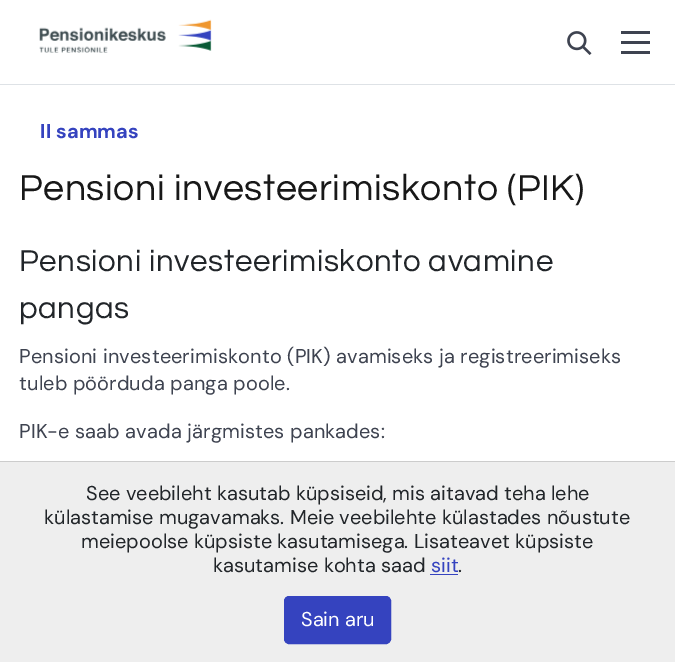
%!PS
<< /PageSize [675 662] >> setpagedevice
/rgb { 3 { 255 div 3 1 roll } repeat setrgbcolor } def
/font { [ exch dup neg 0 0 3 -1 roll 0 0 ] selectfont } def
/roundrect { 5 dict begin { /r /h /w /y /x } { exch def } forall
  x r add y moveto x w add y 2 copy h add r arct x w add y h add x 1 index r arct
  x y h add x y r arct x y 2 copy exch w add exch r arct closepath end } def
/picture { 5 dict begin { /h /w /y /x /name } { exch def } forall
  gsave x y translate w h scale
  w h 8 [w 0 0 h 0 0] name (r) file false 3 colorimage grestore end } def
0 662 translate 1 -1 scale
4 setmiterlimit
255 255 255 rgb
0 0 675 662 rectfill
(img/1.rgb) 39 19 173 34 picture
(img/2.rgb) 567 31 25 24 picture
[
  [621 31 29 3 62 67 80]
  [621 41 29 3 62 67 80]
  [621 51 29 3 62 67 80]
  [0 84 675 1 222 226 230]
  [0 462 675 200 238 238 238]
  [0 461 675 1 204 204 204]
  [430 574 28 1 53 67 191]
] { aload pop rgb rectfill } forall
284.5 596.5 106 47 4.5 roundrect gsave fill grestore
stroke
/DMSans-Bold 20 font
40 138 moveto 0.12 0 (II sammas) ashow
/Questrial-Regular 37.5 font
24 24 24 rgb
19 200 moveto 0.6 0 (Pensioni investeerimiskonto \(PIK\)) ashow
/Questrial-Regular 31.25 font
33 37 41 rgb
19 271 moveto 0.6 0 (Pensioni investeerimiskonto avamine) ashow
19 318 moveto 0.6 0 (pangas) ashow
/DMSans-Regular 20 font
62 67 80 rgb
19 363 moveto 0.12 0 (Pensioni investeerimiskonto \(PIK\) avamiseks ja registreerimiseks) ashow
19 390 moveto 0.12 0 (tuleb pöörduda panga poole.) ashow
19 438 moveto 0.12 0 (PIK-e saab avada järgmistes pankades:) ashow
33 37 41 rgb
[
  [(See veebileht kasutab küpsiseid, mis aitavad teha lehe) 86 500]
  [(külastamise mugavamaks. Meie veebilehte külastades nõustute) 44 524]
  [(meiepoolse küpsiste kasutamisega. Lisateavet küpsiste) 81 548]
  [(kasutamise kohta saad) 213 572]
] { aload pop moveto show } forall
53 67 191 rgb
431 572 moveto (siit) show
33 37 41 rgb
458 572 moveto (.) show
255 255 255 rgb
301 626 moveto (Sain aru) show
showpage
